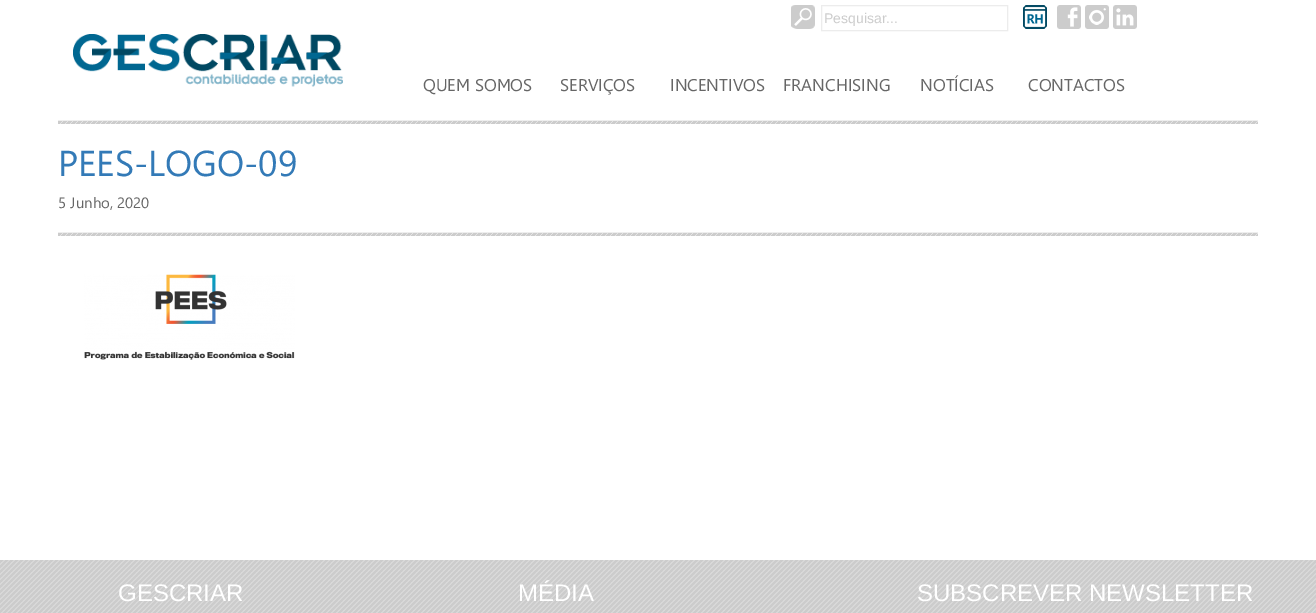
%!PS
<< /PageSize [1316 613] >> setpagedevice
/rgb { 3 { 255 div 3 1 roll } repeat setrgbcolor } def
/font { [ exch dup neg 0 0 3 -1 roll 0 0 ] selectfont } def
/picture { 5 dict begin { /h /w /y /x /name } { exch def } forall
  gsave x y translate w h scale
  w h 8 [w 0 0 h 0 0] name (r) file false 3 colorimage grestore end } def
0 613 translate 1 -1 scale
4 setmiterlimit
255 255 255 rgb
0 0 1316 613 rectfill
(img/1.rgb) 73 34 270 53 picture
(img/2.rgb) 791 5 24 24 picture
236 236 236 rgb
821.5 5.5 186 25 rectstroke
(img/3.rgb) 1023 5 24 24 picture
(img/4.rgb) 1057 5 24 24 picture
(img/5.rgb) 1085 5 24 24 picture
(img/6.rgb) 1113 5 24 24 picture
(img/7.rgb) 58 121 1200 3 picture
238 238 238 rgb
58 120 1200 1 rectfill
(img/7.rgb) 58 233 1200 3 picture
58 232 1200 1 rectfill
(img/8.rgb) 84 274 211 86 picture
(img/9.rgb) 0 560 1316 53 picture
/LiberationSans-Regular 14 font
204 204 204 rgb
824 23 moveto (Pesquisar...) show
/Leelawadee-Regular 17 font
102 102 102 rgb
[
  [(QUEM SOMOS) 423 91]
  [(SERVIÇOS) 560 91]
  [(INCENTIVOS) 670 91]
  [(FRANCHISING) 783 91]
  [(NOTÍCIAS) 920 91]
  [(CONTACTOS) 1028 91]
] { aload pop moveto show } forall
/Leelawadee-Regular 36 font
51 122 183 rgb
58 176 moveto (PEES-LOGO-09) show
/Leelawadee-Regular 15 font
102 102 102 rgb
58 208 moveto (5 Junho, 2020) show
/LiberationSans-Regular 24 font
255 255 255 rgb
[
  [(GESCRIAR) 118 601]
  [(MÉDIA) 518 601]
  [(SUBSCREVER NEWSLETTER) 917 601]
] { aload pop moveto show } forall
showpage
